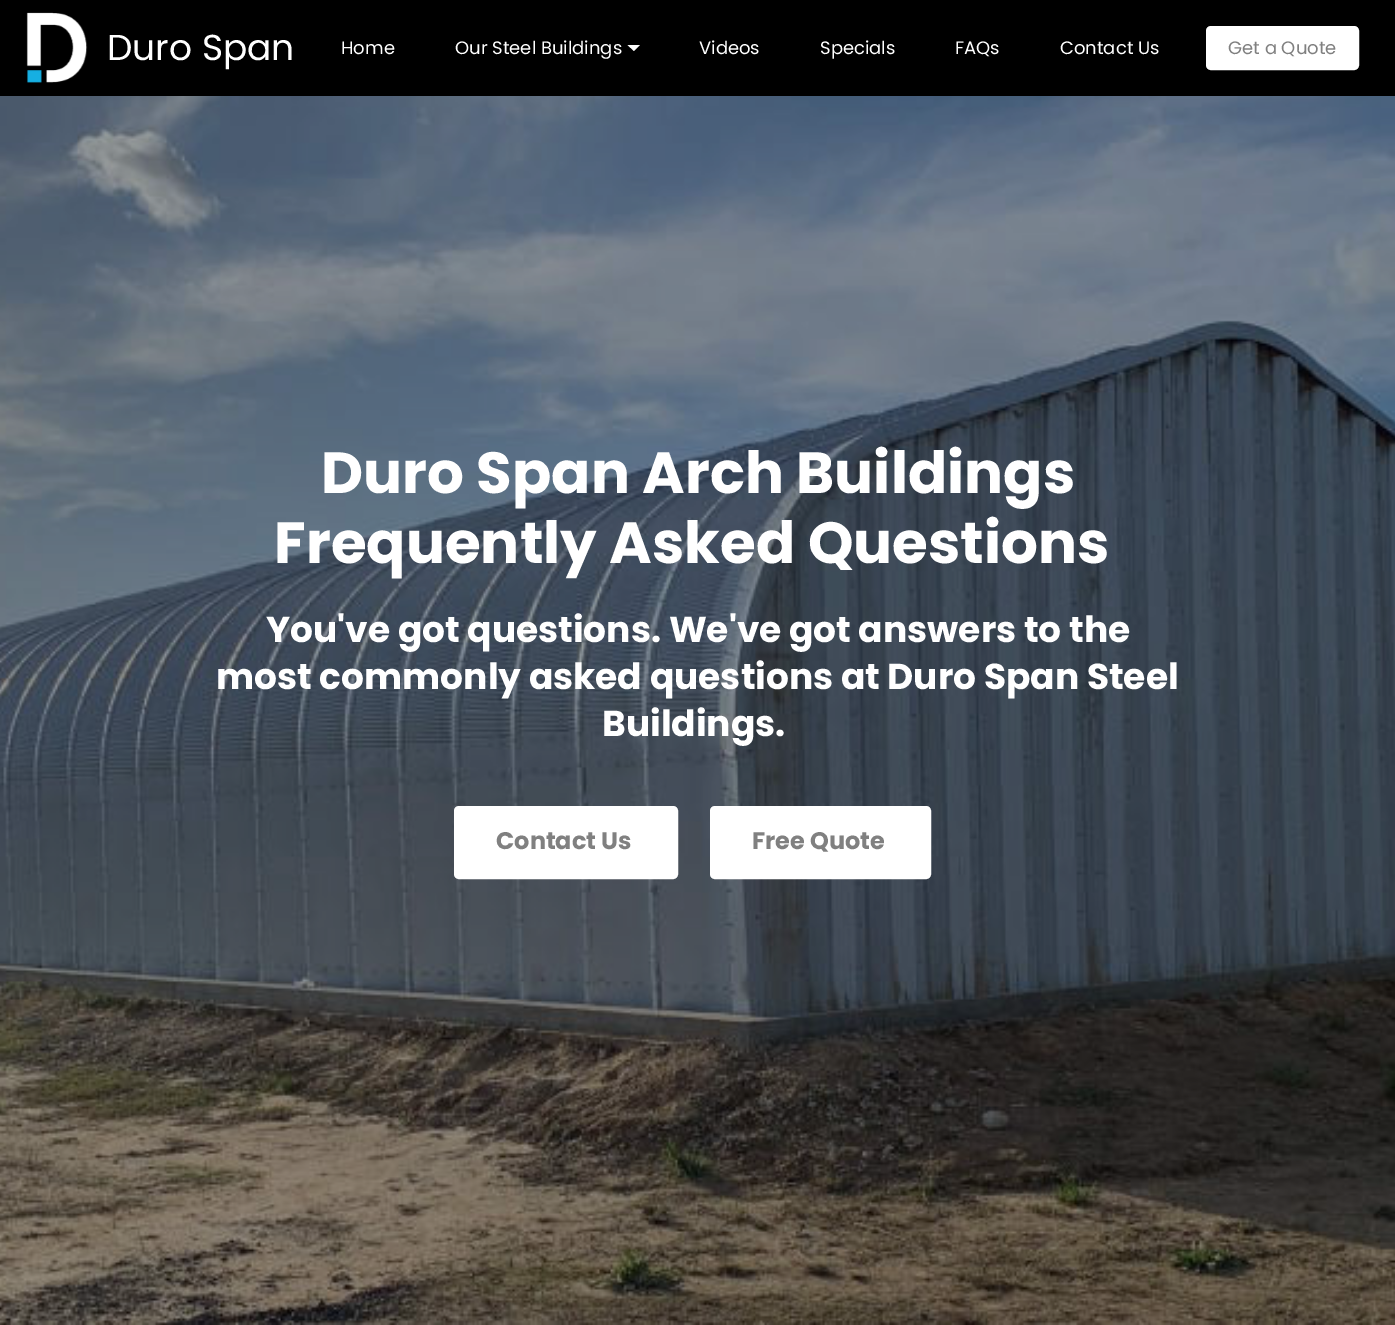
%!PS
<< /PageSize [1395 1325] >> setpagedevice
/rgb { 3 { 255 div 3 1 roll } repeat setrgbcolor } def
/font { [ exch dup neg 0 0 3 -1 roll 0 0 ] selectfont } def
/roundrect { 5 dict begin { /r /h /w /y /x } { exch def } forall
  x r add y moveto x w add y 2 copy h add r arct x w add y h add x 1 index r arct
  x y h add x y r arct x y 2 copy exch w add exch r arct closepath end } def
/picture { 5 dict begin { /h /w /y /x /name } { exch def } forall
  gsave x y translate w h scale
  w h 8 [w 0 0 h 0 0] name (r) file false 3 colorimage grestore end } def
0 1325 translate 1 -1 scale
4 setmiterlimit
255 255 255 rgb
0 0 1395 1325 rectfill
0 0 0 rgb
0 0 1395 96 rectfill
(img/1.rgb) 26 12 62 71 picture
255 255 255 rgb
627.5 45 moveto 640 45 lineto 634 51 lineto closepath fill
1207.5 27.5 150 41 3.5 roundrect gsave fill grestore
3 setlinewidth
stroke
(img/2.rgb) 0 96 1395 1229 picture
455.5 807.5 221 70 3.5 roundrect gsave fill grestore
stroke
711.5 807.5 218 70 3.5 roundrect gsave fill grestore
stroke
/Poppins-Regular 36 font
107 60 moveto (Duro Span) show
/Poppins-Regular 18 font
[
  [(Home) 341 54]
  [(Our Steel Buildings) 455 54]
  [(Videos) 699 54]
  [(Specials) 820 54]
  [(FAQs) 955 54]
  [(Contact Us) 1060 54]
] { aload pop moveto show } forall
128 128 128 rgb
1228 54 moveto (Get a Quote) show
/Poppins-Bold 58 font
255 255 255 rgb
321 493 moveto (Duro Span Arch Buildings) show
274 563 moveto (Frequently Asked Questions) show
/Poppins-Bold 36 font
[
  [(You've got questions. We've got answers to the) 266 642]
  [(most commonly asked questions at Duro Span Steel) 216 689]
  [(Buildings.) 602 736]
] { aload pop moveto show } forall
/Poppins-Bold 24 font
128 128 128 rgb
496 849 moveto (Contact Us) show
752 849 moveto (Free Quote) show
showpage
